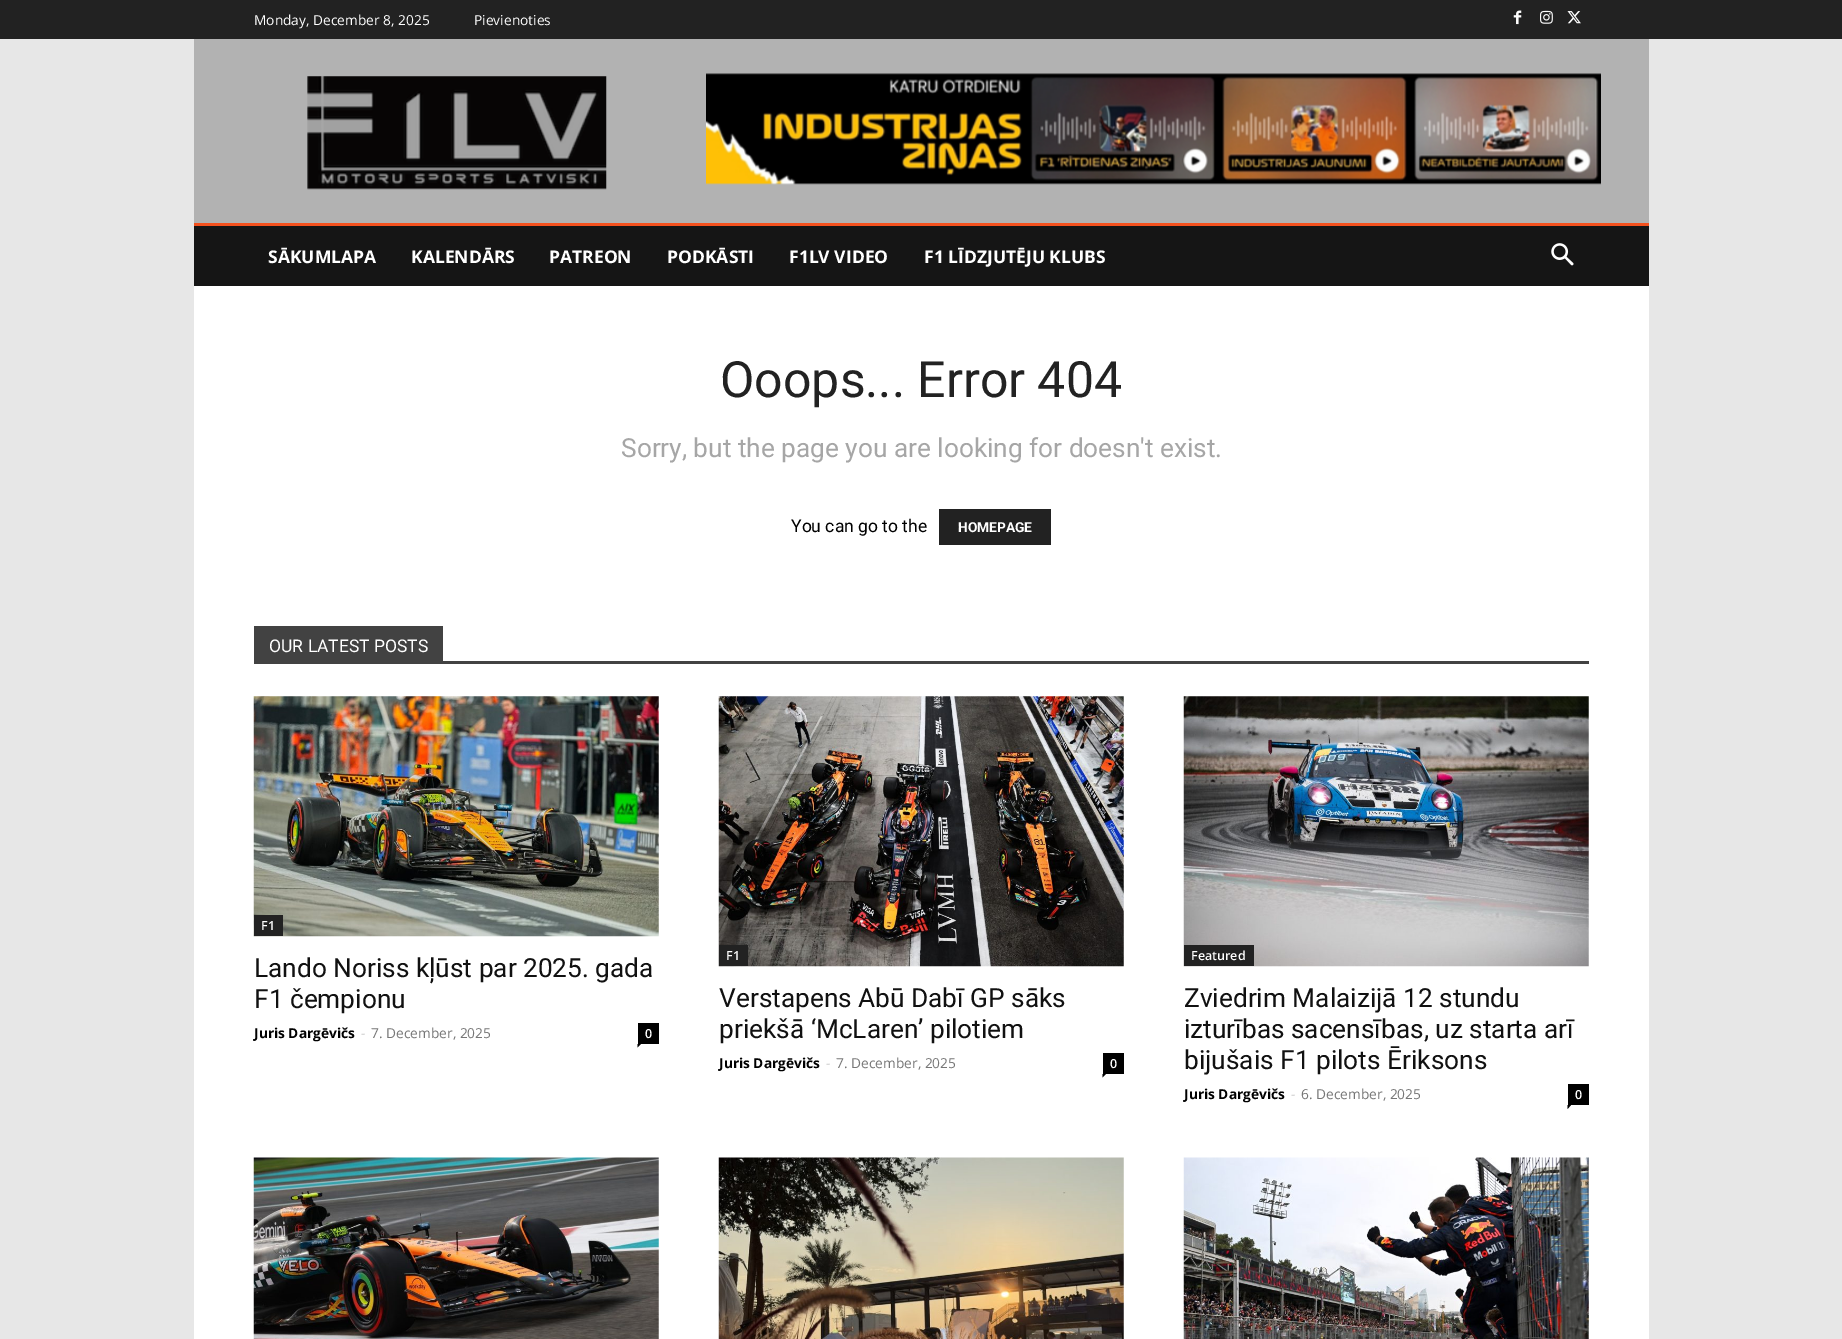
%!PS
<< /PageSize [1842 1339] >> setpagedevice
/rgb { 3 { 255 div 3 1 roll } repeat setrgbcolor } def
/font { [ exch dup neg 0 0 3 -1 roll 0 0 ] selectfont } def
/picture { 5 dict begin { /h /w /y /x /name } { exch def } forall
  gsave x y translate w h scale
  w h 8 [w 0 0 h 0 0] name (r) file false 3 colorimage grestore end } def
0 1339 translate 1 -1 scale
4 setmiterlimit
231 231 231 rgb
0 0 1842 1339 rectfill
34 34 34 rgb
0 0 1842 39 rectfill
(img/1.rgb) 1513 10 9 15 picture
(img/2.rgb) 1540 10 13 14 picture
(img/3.rgb) 1567 11 14 13 picture
178 178 178 rgb
194 39 1455 184 rectfill
244 81 30 rgb
194 223 1455 3 rectfill
(img/4.rgb) 307 76 300 114 picture
(img/5.rgb) 706 73 895 112 picture
21 21 21 rgb
194 226 1455 60 rectfill
(img/6.rgb) 1551 243 23 23 picture
[
  [194 286 1455 1053 255 255 255]
  [939 509 112 36 34 34 34]
  [254 661 1335 3 66 66 66]
  [254 626 189 35 66 66 66]
] { aload pop rgb rectfill } forall
(img/7.rgb) 253 696 406 241 picture
34 34 34 rgb
254 915 29 21 rectfill
0 0 0 rgb
638 1023 21 21 rectfill
637.5 1044 moveto 641 1044 lineto 637.5 1047.5 lineto closepath fill
(img/8.rgb) 718 696 406 271 picture
34 34 34 rgb
719 945 29 21 rectfill
0 0 0 rgb
1103 1053 21 21 rectfill
1102.5 1074 moveto 1106 1074 lineto 1102.5 1077.5 lineto closepath fill
(img/9.rgb) 1183 696 406 271 picture
34 34 34 rgb
1184 945 70 21 rectfill
0 0 0 rgb
1568 1084 21 21 rectfill
1567.5 1105 moveto 1571 1105 lineto 1567.5 1109 lineto closepath fill
(img/10.rgb) 253 1157 406 182 picture
(img/11.rgb) 718 1157 406 182 picture
(img/12.rgb) 1183 1157 406 182 picture
/OpenSans-Regular 13.75 font
255 255 255 rgb
254 25 moveto (Monday, December 8, 2025) show
474 25 moveto (Pievienoties) show
/OpenSans-Bold 17.5 font
[
  [(SĀKUMLAPA) 268 263]
  [(KALENDĀRS) 411 263]
  [(PATREON) 549 263]
  [(PODKĀSTI) 667 263]
  [(F1LV VIDEO) 789 263]
  [(F1 LĪDZJUTĒJU KLUBS) 924 263]
] { aload pop moveto show } forall
/Roboto-Regular 50 font
34 34 34 rgb
720 397 moveto (Ooops... Error 404) show
/Roboto-Regular 26.25 font
166 166 166 rgb
621 457 moveto (Sorry, but the page you are looking for doesn't exist.) show
/Roboto-Regular 17.5 font
0 0 0 rgb
791 532 moveto (You can go to the) show
/Roboto-Bold 13.75 font
255 255 255 rgb
958 532 moveto (HOMEPAGE) show
/Roboto-Regular 17.5 font
269 652 moveto (OUR LATEST POSTS) show
/OpenSans-SemiBold 12.5 font
261 930 moveto (F1) show
/Roboto-Regular 26.25 font
17 17 17 rgb
254 977 moveto (Lando Noriss kļūst par 2025. gada) show
254 1008 moveto (F1 čempionu) show
/OpenSans-Bold 13.75 font
0 0 0 rgb
254 1038 moveto (Juris Dargēvičs) show
/OpenSans-Regular 13.75 font
204 204 204 rgb
361 1038 moveto (-) show
118 118 118 rgb
371 1038 moveto (7. December, 2025) show
/OpenSans-SemiBold 12.5 font
255 255 255 rgb
645 1038 moveto (0) show
726 960 moveto (F1) show
/Roboto-Regular 26.25 font
17 17 17 rgb
719 1007 moveto (Verstapens Abū Dabī GP sāks) show
719 1038 moveto (priekšā ‘McLaren’ pilotiem) show
/OpenSans-Bold 13.75 font
0 0 0 rgb
719 1068 moveto (Juris Dargēvičs) show
/OpenSans-Regular 13.75 font
204 204 204 rgb
826 1068 moveto (-) show
118 118 118 rgb
836 1068 moveto (7. December, 2025) show
/OpenSans-SemiBold 12.5 font
255 255 255 rgb
1110 1068 moveto (0) show
1191 960 moveto (Featured) show
/Roboto-Regular 26.25 font
17 17 17 rgb
[
  [(Zviedrim Malaizijā 12 stundu) 1184 1007]
  [(izturības sacensības, uz starta arī) 1184 1038]
  [(bijušais F1 pilots Ēriksons) 1184 1069]
] { aload pop moveto show } forall
/OpenSans-Bold 13.75 font
0 0 0 rgb
1184 1099 moveto (Juris Dargēvičs) show
/OpenSans-Regular 13.75 font
204 204 204 rgb
1291 1099 moveto (-) show
118 118 118 rgb
1301 1099 moveto (6. December, 2025) show
/OpenSans-SemiBold 12.5 font
255 255 255 rgb
1575 1099 moveto (0) show
showpage
